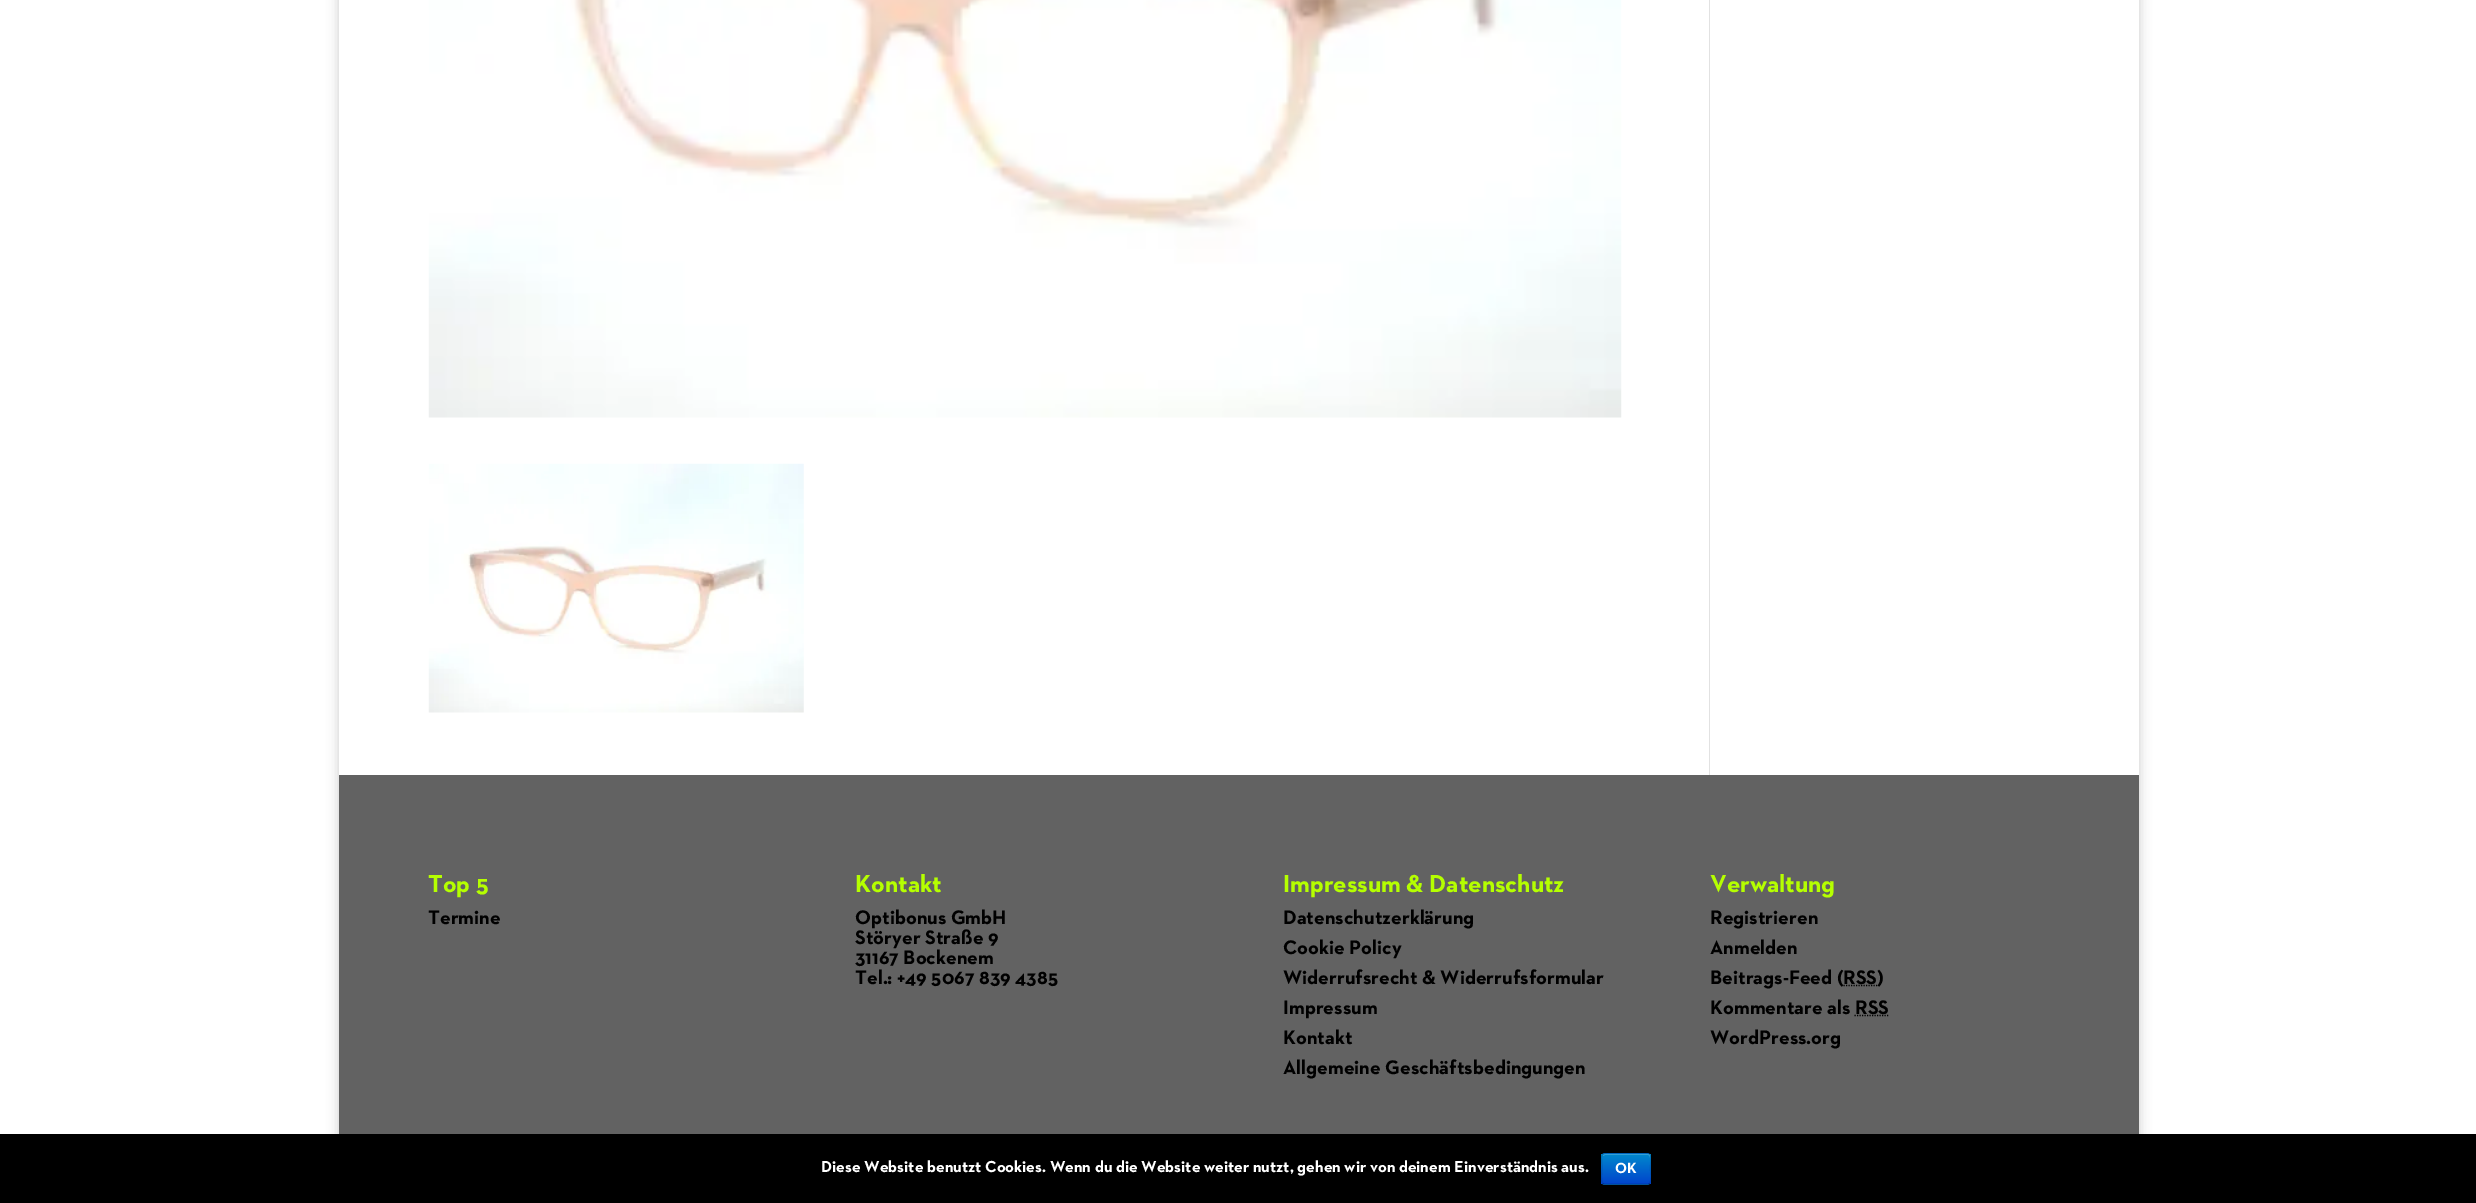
%!PS
<< /PageSize [2476 1203] /PageUsesTransparency true >> setpagedevice
/rgb { 3 { 255 div 3 1 roll } repeat setrgbcolor } def
/font { [ exch dup neg 0 0 3 -1 roll 0 0 ] selectfont } def
/alpha { dup .setfillconstantalpha .setstrokeconstantalpha } def
/roundrect { 5 dict begin { /r /h /w /y /x } { exch def } forall
  x r add y moveto x w add y 2 copy h add r arct x w add y h add x 1 index r arct
  x y h add x y r arct x y 2 copy exch w add exch r arct closepath end } def
/shadow { 12 dict begin { /a /b /q /h /w /y /x } { exch def } forall gsave /was 0 def
  9 -2 -9 { dup b mul 4 div /e exch def 1 sub .425 mul 2.718 exch exp 1 add a .99 .min exch div /now exch def
    1 1 now sub 1 was sub div sub alpha /was now def
    w h .min e 2 mul add 0 gt { x e sub y e sub w e 2 mul add h e 2 mul add
      q e add b .6 mul add w h .min 2 div e add .min 0 .max roundrect fill } if } for grestore end } def
/picture { 5 dict begin { /h /w /y /x /name } { exch def } forall
  gsave x y translate w h scale
  w h 8 [w 0 0 h 0 0] name (r) file false 3 colorimage grestore end } def
0 .pushpdf14devicefilter
0 1203 translate 1 -1 scale
4 setmiterlimit
255 255 255 rgb
0 0 2476 1203 rectfill
gsave
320 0 moveto 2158 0 lineto 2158 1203 lineto 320 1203 lineto closepath 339 -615 moveto 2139 -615 lineto 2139 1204 lineto 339 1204 lineto closepath eoclip newpath
0 0 0 rgb
339 -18 1800 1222 0 6 0.2 shadow
grestore
2138 0 1 775 rectfill
(img/1.rgb) 428 0 1194 418 picture
(img/2.rgb) 428 463 376 250 picture
226 226 226 rgb
1709 0 1 775 rectfill
0.85 alpha
71 71 71 rgb
339 775 1800 359 rectfill
1 alpha
0 0 0 rgb
1.2 setlinewidth
[1.25 1.25] 0 setdash
1843.5 985.5 moveto 1877.5 985.5 lineto stroke
1854.5 1015.5 moveto 1888.5 1015.5 lineto stroke
0 1134 2476 69 rectfill
0 109 204 rgb
1601 1153 50 32 4 roundrect fill
gsave
1601 1153 50 32 4 roundrect clip newpath
gsave 1601 1154 moveto 1651 1154 lineto 1651 1184 lineto 1601 1184 lineto closepath clip newpath
<< /ShadingType 2 /ColorSpace /DeviceRGB /Coords [1626 1154 1626 1184] /Extend [true true] /Function << /FunctionType 2 /Domain [0 1] /C0 [0 0.533 0.8] /C1 [0 0.267 0.8] /N 1 >> >> shfill grestore
grestore
51 159 214 rgb
1605 1155 moveto 1648 1155 lineto 1649 1155 1650 1156 1650 1158 curveto 1650 1156 lineto 1650 1155 1649 1154 1648 1154 curveto 1606 1154 lineto 1604 1154 1603 1155 1603 1156 curveto closepath fill
0.25 alpha
0 0 0 rgb
[] 0 setdash
1649.5 1183.5 moveto 1648 1184.5 lineto 1604.5 1184.5 lineto 1603 1183.5 lineto stroke
0.1 alpha
1603 1183.5 moveto 1600.5 1181.5 1602 1171.5 1602 1169 curveto 1602 1153.5 1598.5 1153 1612 1153 curveto 1640.5 1153 lineto 1654 1153 1650.5 1153.5 1650.5 1169 curveto 1650.5 1171.5 1652 1181.5 1649.5 1183.5 curveto stroke
/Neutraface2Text-Bold 25 font
1 alpha
181 255 0 rgb
428 892 moveto (Top 5) show
/Neutraface2Text-Bold 20 font
0 0 0 rgb
428 924 moveto (Termine) show
/Neutraface2Text-Bold 25 font
181 255 0 rgb
855 892 moveto (Kontakt) show
/Neutraface2Text-Bold 20 font
0 0 0 rgb
[
  [(Optibonus GmbH) 855 924]
  [(Störyer Straße 9) 855 944]
  [(31167 Bockenem) 855 964]
  [(Tel.: +49 5067 839 4385) 855 984]
] { aload pop moveto show } forall
/Neutraface2Text-Bold 25 font
181 255 0 rgb
1283 892 moveto (Impressum & Datenschutz) show
/Neutraface2Text-Bold 20 font
0 0 0 rgb
[
  [(Datenschutzerklärung) 1283 924]
  [(Cookie Policy) 1283 954]
  [(Widerrufsrecht & Widerrufsformular) 1283 984]
  [(Impressum) 1283 1014]
  [(Kontakt) 1283 1044]
  [(Allgemeine Geschäftsbedingungen) 1283 1074]
] { aload pop moveto show } forall
/Neutraface2Text-Bold 25 font
181 255 0 rgb
1710 892 moveto (Verwaltung) show
/Neutraface2Text-Bold 20 font
0 0 0 rgb
[
  [(Registrieren) 1710 924]
  [(Anmelden) 1710 954]
  [(Beitrags-Feed \() 1710 984]
  [(RSS\)) 1843 984]
  [(Kommentare als) 1710 1014]
  [(RSS) 1855 1014]
  [(WordPress.org) 1710 1044]
] { aload pop moveto show } forall
/Neutraface2Text-Bold 16.25 font
255 255 255 rgb
821 1172 moveto (Diese Website benutzt Cookies. Wenn du die Website weiter nutzt, gehen wir von deinem Einverständnis aus.) show
/Neutraface2Text-Bold 15 font
1615 1173 moveto (OK) show
.poppdf14devicefilter showpage
